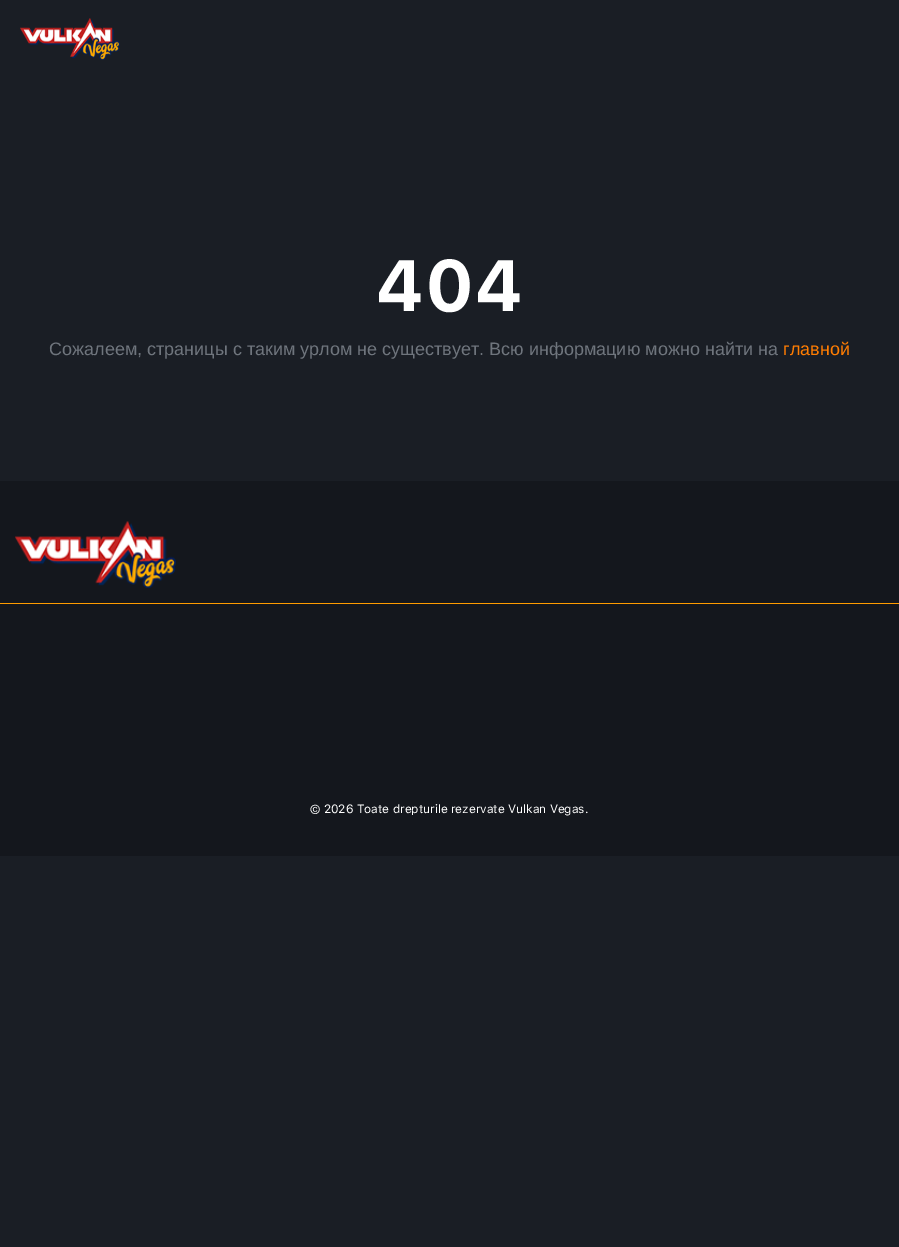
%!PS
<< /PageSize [899 1247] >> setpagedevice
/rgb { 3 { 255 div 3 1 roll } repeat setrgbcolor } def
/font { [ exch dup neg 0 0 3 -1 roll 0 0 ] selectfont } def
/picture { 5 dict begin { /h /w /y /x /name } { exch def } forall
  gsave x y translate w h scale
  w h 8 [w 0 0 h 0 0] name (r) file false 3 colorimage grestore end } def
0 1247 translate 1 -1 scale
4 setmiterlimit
26 30 37 rgb
0 0 899 1247 rectfill
(img/1.rgb) 20 18 100 42 picture
20 23 29 rgb
0 481 899 375 rectfill
(img/2.rgb) 15 521 161 67 picture
255 156 0 rgb
0 603 899 1 rectfill
/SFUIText-Bold 72 font
255 255 255 rgb
375 311 moveto (404) show
/LiberationSans-Regular 18 font
111 117 125 rgb
49 355 moveto 0.1 0 32 (Сожалеем, страницы с таким урлом не существует. Всю информацию можно найти на) widthshow
255 125 2 rgb
783 355 moveto (главной) show
/SFUIText-Regular 12 font
255 255 255 rgb
310 813 moveto (© 2026 Toate drepturile rezervate Vulkan Vegas.) show
showpage
